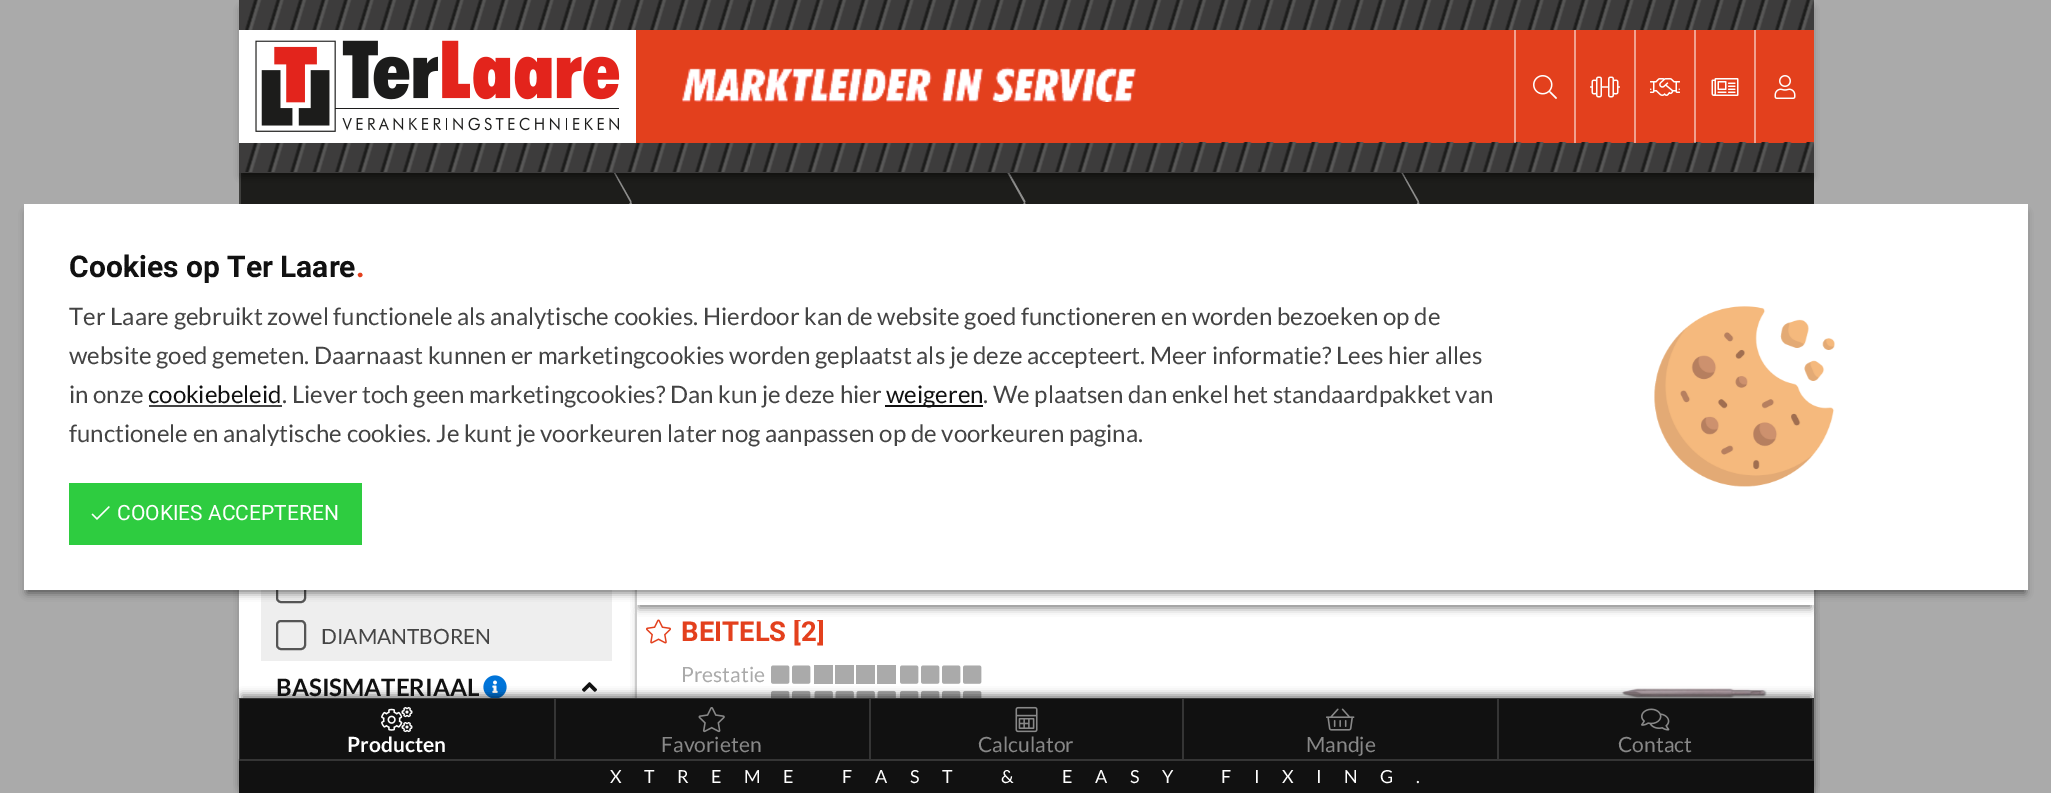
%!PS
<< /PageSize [2051 793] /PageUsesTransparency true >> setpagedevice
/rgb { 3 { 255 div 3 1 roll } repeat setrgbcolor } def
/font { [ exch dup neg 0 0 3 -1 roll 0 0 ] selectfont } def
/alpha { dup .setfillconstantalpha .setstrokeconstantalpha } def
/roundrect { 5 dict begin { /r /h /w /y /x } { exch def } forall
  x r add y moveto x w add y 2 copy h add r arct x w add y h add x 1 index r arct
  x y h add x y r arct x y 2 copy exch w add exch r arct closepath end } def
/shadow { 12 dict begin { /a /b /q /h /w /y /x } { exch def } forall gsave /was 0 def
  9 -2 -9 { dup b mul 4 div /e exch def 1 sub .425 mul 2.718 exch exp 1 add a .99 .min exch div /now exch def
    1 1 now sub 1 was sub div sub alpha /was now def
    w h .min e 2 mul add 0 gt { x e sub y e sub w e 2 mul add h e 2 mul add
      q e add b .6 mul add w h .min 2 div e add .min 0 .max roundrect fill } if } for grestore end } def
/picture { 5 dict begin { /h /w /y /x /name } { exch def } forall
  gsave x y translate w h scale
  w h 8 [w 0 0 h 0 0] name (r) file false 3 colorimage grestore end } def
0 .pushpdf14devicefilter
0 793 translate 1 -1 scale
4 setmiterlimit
170 170 170 rgb
0 0 2051 793 rectfill
29 29 27 rgb
241 173 1573 31 rectfill
63 63 61 rgb
239 173 2 31 rectfill
0 0 0 rgb
242 242 1569 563 0 4 0.5 shadow
142 142 141 rgb
630.5 202 moveto 632 203 lineto 614.5 233.5 lineto 613 233 lineto closepath fill
613.5 172 moveto 614.5 171.5 lineto 631.5 201.5 lineto 630.5 202.5 lineto closepath fill
1024.5 202 moveto 1025.5 203 lineto 1008 233.5 lineto 1007 233 lineto closepath fill
1007 172 moveto 1008.5 171.5 lineto 1025.5 201.5 lineto 1024 202.5 lineto closepath fill
1418 202 moveto 1419.5 203 lineto 1402 233.5 lineto 1400.5 233 lineto closepath fill
1401 172 moveto 1402 171.5 lineto 1419 201.5 lineto 1418 202.5 lineto closepath fill
0 0 0 rgb
242 9 1569 167 0 4 0.5 shadow
227 64 29 rgb
1181 30 633 113 rectfill
61 60 60 rgb
239 0 1575 30 rectfill
(img/1.rgb) 245 0 1569 30 picture
239 143 1575 30 rectfill
(img/9.rgb) 245 142 1569 30 picture
255 255 255 rgb
239 30 397 113 rectfill
(img/2.rgb) 255 40 365 92 picture
227 64 29 rgb
636 30 545 113 rectfill
(img/3.rgb) 682 67 454 35 picture
0.5 alpha
255 255 255 rgb
1514 30 2 113 rectfill
1 alpha
(img/4.rgb) 1533 75 24 24 picture
241 160 142 rgb
1574 30 2 113 rectfill
(img/5.rgb) 1590 76 30 22 picture
1634 30 2 113 rectfill
(img/6.rgb) 1650 78 30 18 picture
0.5 alpha
255 255 255 rgb
1694 30 2 113 rectfill
1 alpha
(img/7.rgb) 1711 78 28 18 picture
241 160 142 rgb
1754 30 2 113 rectfill
(img/8.rgb) 1774 75 22 24 picture
255 255 255 rgb
239 590 1575 108 rectfill
gsave
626 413 moveto 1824 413 lineto 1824 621 lineto 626 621 lineto closepath 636 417 moveto 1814 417 lineto 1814 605 lineto 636 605 lineto closepath eoclip newpath
0 0 0 rgb
639 426 1172 182 0 4 0.5 shadow
grestore
gsave
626 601 moveto 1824 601 lineto 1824 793 lineto 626 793 lineto closepath 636 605 moveto 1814 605 lineto 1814 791 lineto 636 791 lineto closepath eoclip newpath
0 0 0 rgb
639 614 1172 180 0 4 0.5 shadow
grestore
203 203 203 rgb
635 590 2 114 rectfill
238 238 238 rgb
261 590 351 71 rectfill
85 85 85 rgb
2 setlinewidth
277 574 28 28 4 roundrect stroke
0 0 0 rgb
27 213 1998 380 0 4 0.5 shadow
[
  [24 204 2004 386 255 255 255]
  [149 405 133 2 68 68 68]
  [885 405 98 2 17 17 17]
  [69 483 293 62 46 204 64]
] { aload pop rgb rectfill } forall
(img/10.rgb) 91 506 19 14 picture
(img/11.rgb) 1654 306 181 181 picture
85 85 85 rgb
277 621 28 28 4 roundrect stroke
(img/12.rgb) 483 675 24 23 picture
(img/13.rgb) 582 682 15 10 picture
(img/14.rgb) 646 619 25 25 picture
(img/15.rgb) 771 665 19 19 picture
(img/15.rgb) 792 665 19 19 picture
[
  [814 665 19 19 170 170 170]
  [835 665 19 19 170 170 170]
  [856 665 19 19 170 170 170]
  [877 665 19 19 170 170 170]
] { aload pop rgb rectfill } forall
(img/15.rgb) 900 665 19 19 picture
(img/15.rgb) 921 665 19 19 picture
(img/15.rgb) 942 665 19 19 picture
(img/15.rgb) 963 665 19 19 picture
(img/16.rgb) 771 690 19 8 picture
(img/16.rgb) 792 690 19 8 picture
(img/17.rgb) 814 690 19 8 picture
(img/17.rgb) 835 690 19 8 picture
(img/17.rgb) 856 690 19 8 picture
(img/17.rgb) 877 690 19 8 picture
(img/16.rgb) 900 690 19 8 picture
(img/16.rgb) 921 690 19 8 picture
(img/16.rgb) 942 690 19 8 picture
(img/16.rgb) 963 690 19 8 picture
(img/18.rgb) 1621 688 146 10 picture
0 0 0 rgb
242 695 1569 90 0 4 0.5 shadow
17 17 17 rgb
239 698 1575 95 rectfill
53 53 53 rgb
238 698 moveto 1814 698 lineto 1814 699 lineto 240 699 lineto closepath fill
0.15 alpha
255 255 255 rgb
238 759 moveto 238 698 lineto 240 699 lineto 240 759 lineto closepath fill
1 alpha
53 53 53 rgb
554 699 2 60 rectfill
(img/19.rgb) 381 707 32 26 picture
869 699 2 60 rectfill
(img/20.rgb) 698 707 27 26 picture
1182 699 2 60 rectfill
(img/21.rgb) 1015 706 23 27 picture
1497 699 2 60 rectfill
(img/22.rgb) 1326 708 29 23 picture
1812 699 2 60 rectfill
(img/23.rgb) 1641 708 29 23 picture
239 759 1575 2 rectfill
/Roboto-Bold 30 font
17 17 17 rgb
69 277 moveto (Cookies op Ter Laare) show
227 64 29 rgb
356 277 moveto (.) show
/Lato-Regular 24 font
68 68 68 rgb
[
  [(Ter Laare gebruikt zowel functionele als analytische cookies. Hierdoor kan de website goed functioneren en worden bezoeken op de) 69 325]
  [(website goed gemeten. Daarnaast kunnen er marketingcookies worden geplaatst als je deze accepteert. Meer informatie? Lees hier alles) 69 364]
  [(in onze) 69 403]
] { aload pop moveto show } forall
17 17 17 rgb
148 403 moveto (cookiebeleid) show
68 68 68 rgb
282 403 moveto (. Liever toch geen marketingcookies? Dan kun je deze hier) show
17 17 17 rgb
886 403 moveto (weigeren) show
68 68 68 rgb
983 403 moveto (. We plaatsen dan enkel het standaardpakket van) show
69 442 moveto (functionele en analytische cookies. Je kunt je voorkeuren later nog aanpassen op de voorkeuren pagina.) show
/Roboto-Regular 21 font
255 255 255 rgb
117 520 moveto (COOKIES ACCEPTEREN) show
/Lato-Regular 21 font
68 68 68 rgb
321 644 moveto (DIAMANTBOREN) show
/Lato-Bold 24 font
17 17 17 rgb
276 696 moveto (BASISMATERIAAL) show
gsave
681 620 1118 27 rectclip
/Roboto-Bold 27.5 font
227 64 29 rgb
681 641 moveto (BEITELS [2]) show
grestore
/Lato-Regular 21 font
170 170 170 rgb
681 682 moveto (Prestatie) show
/Lato-Bold 21 font
255 255 255 rgb
347 752 moveto (Producten) show
/Lato-Regular 21 font
136 136 136 rgb
[
  [(Favorieten) 661 752]
  [(Calculator) 978 752]
  [(Mandje) 1306 752]
  [(Contact) 1618 752]
] { aload pop moveto show } forall
/Lato-Regular 18 font
255 255 255 rgb
610 783 moveto 22.5 0 (XTREME FAST & EASY FIXING.) ashow
.poppdf14devicefilter showpage
